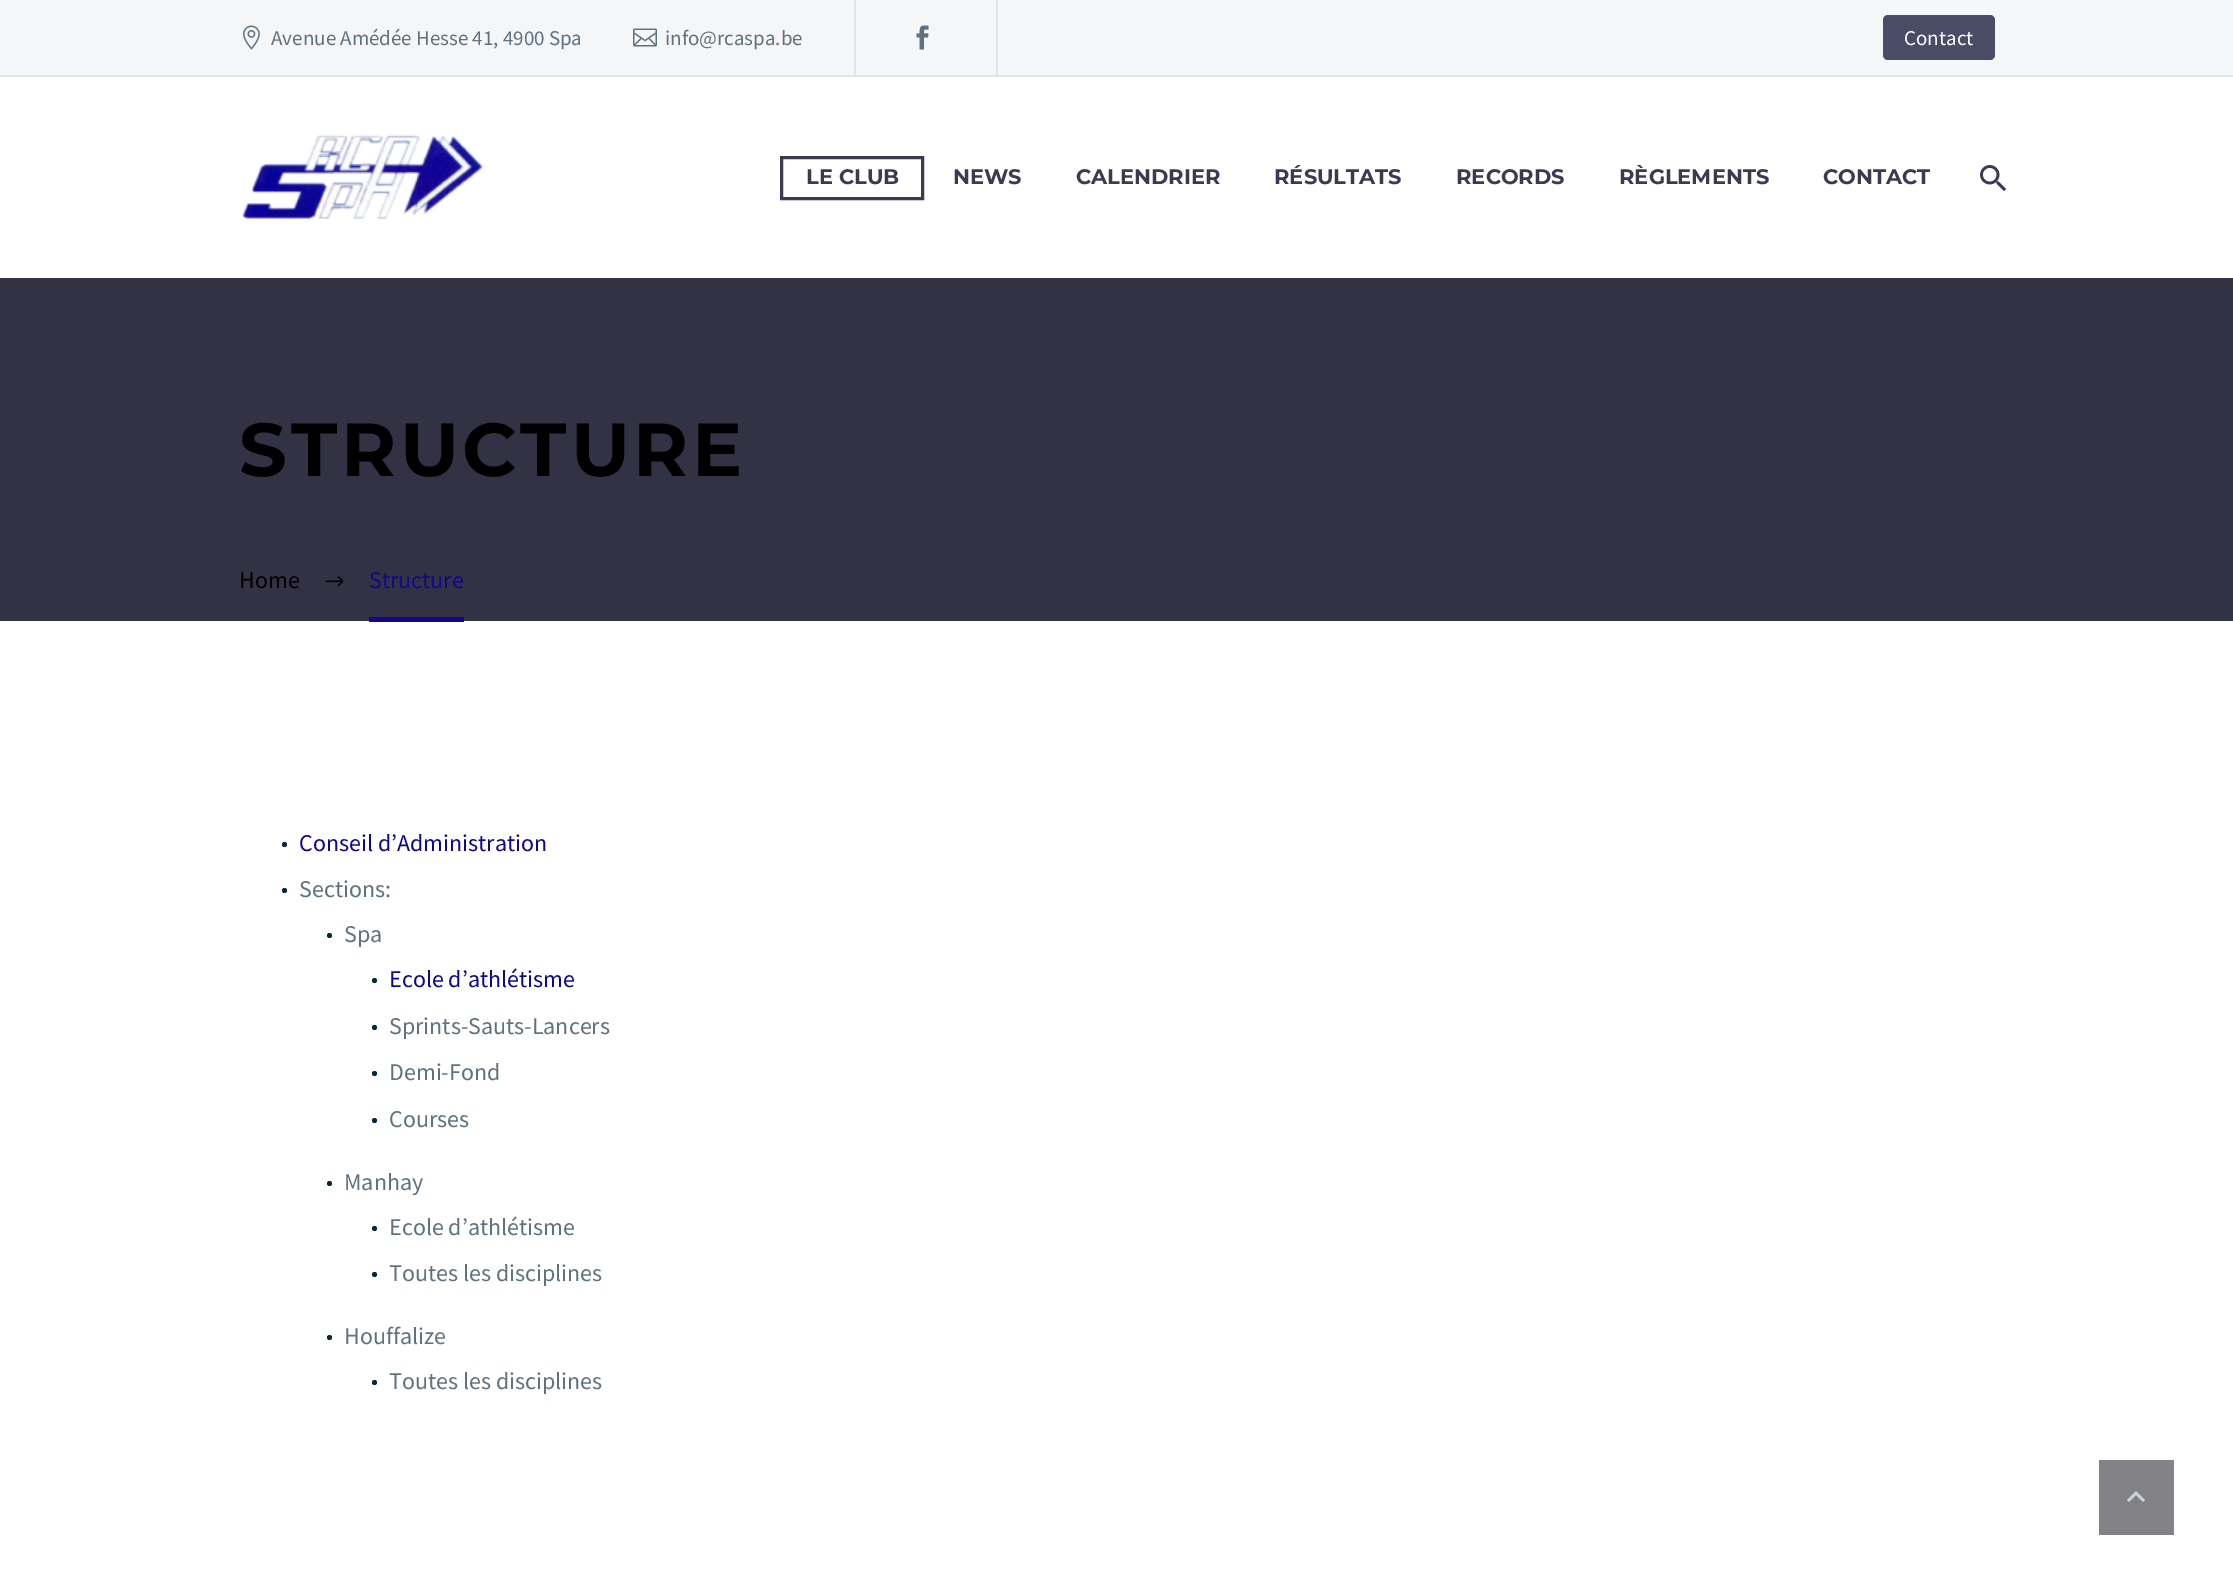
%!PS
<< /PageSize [2233 1587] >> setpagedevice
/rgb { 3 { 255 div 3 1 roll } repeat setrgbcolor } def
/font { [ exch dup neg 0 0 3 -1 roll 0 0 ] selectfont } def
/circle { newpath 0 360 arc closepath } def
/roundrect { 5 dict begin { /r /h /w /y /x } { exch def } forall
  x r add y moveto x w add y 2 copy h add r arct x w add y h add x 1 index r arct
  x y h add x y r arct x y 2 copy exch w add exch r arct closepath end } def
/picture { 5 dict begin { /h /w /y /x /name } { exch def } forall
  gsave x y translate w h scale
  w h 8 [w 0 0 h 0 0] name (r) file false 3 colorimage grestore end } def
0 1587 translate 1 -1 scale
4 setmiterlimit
244 246 247 rgb
0 0 2233 1587 rectfill
223 229 232 rgb
0 75 2233 2 rectfill
(img/1.rgb) 243 25 17 25 picture
(img/2.rgb) 633 28 24 19 picture
854 0 2 75 rectfill
(img/3.rgb) 916 25 13 25 picture
996 0 2 75 rectfill
73 76 100 rgb
1883 15 112 45 5 roundrect fill
255 255 255 rgb
0 77 2233 201 rectfill
(img/4.rgb) 241 134 243 86 picture
60 57 80 rgb
3 setlinewidth
781.5 157.5 141 41 rectstroke
(img/5.rgb) 1980 165 27 27 picture
51 49 68 rgb
0 278 2233 343 rectfill
(img/6.rgb) 325 576 19 11 picture
255 255 255 rgb
0 621 2233 966 rectfill
15 8 143 rgb
369 617 95 5 rectfill
0 43 54 rgb
284.5 844.5 2.5 circle fill
284.5 890.5 2.5 circle fill
329.5 935.5 2.5 circle fill
374.5 980.5 2.5 circle fill
374.5 1027.5 2.5 circle fill
374.5 1073.5 2.5 circle fill
374.5 1120.5 2.5 circle fill
329.5 1183.5 2.5 circle fill
374.5 1228.5 2.5 circle fill
374.5 1274.5 2.5 circle fill
329.5 1337.5 2.5 circle fill
374.5 1382.5 2.5 circle fill
131 131 135 rgb
2099 1460 75 75 rectfill
204 212 218 rgb
2129 1502 moveto 2136 1495 lineto 2143 1502 lineto 2145 1500 lineto 2136 1491 lineto 2127 1500 lineto closepath fill
/SourceSansPro-Regular 21 font
95 114 127 rgb
271 45 moveto (Avenue Amédée Hesse 41, 4900 Spa) show
665 45 moveto (info@rcaspa.be) show
255 255 255 rgb
1904 45 moveto (Contact) show
/Montserrat-Bold 21 font
60 57 80 rgb
[
  [(LE CLUB) 806 184]
  [(NEWS) 953 184]
  [(CALENDRIER) 1076 184]
  [(RÉSULTATS) 1274 184]
  [(RECORDS) 1456 184]
  [(RÈGLEMENTS) 1619 184]
  [(CONTACT) 1823 184]
] { aload pop moveto show } forall
/Montserrat-Bold 75 font
0 0 0 rgb
239 476 moveto 3.75 0 (STRUCTURE) ashow
/SourceSansPro-Regular 24 font
239 588 moveto (Home) show
15 8 143 rgb
369 588 moveto (Structure) show
299 851 moveto (Conseil d’Administration) show
95 114 127 rgb
299 897 moveto (Sections:) show
344 942 moveto (Spa) show
15 8 143 rgb
389 987 moveto (Ecole d’athlétisme) show
95 114 127 rgb
[
  [(Sprints-Sauts-Lancers) 389 1034]
  [(Demi-Fond) 389 1080]
  [(Courses) 389 1127]
  [(Manhay) 344 1190]
  [(Ecole d’athlétisme) 389 1235]
  [(Toutes les disciplines) 389 1281]
  [(Houffalize) 344 1344]
  [(Toutes les disciplines) 389 1389]
] { aload pop moveto show } forall
showpage
